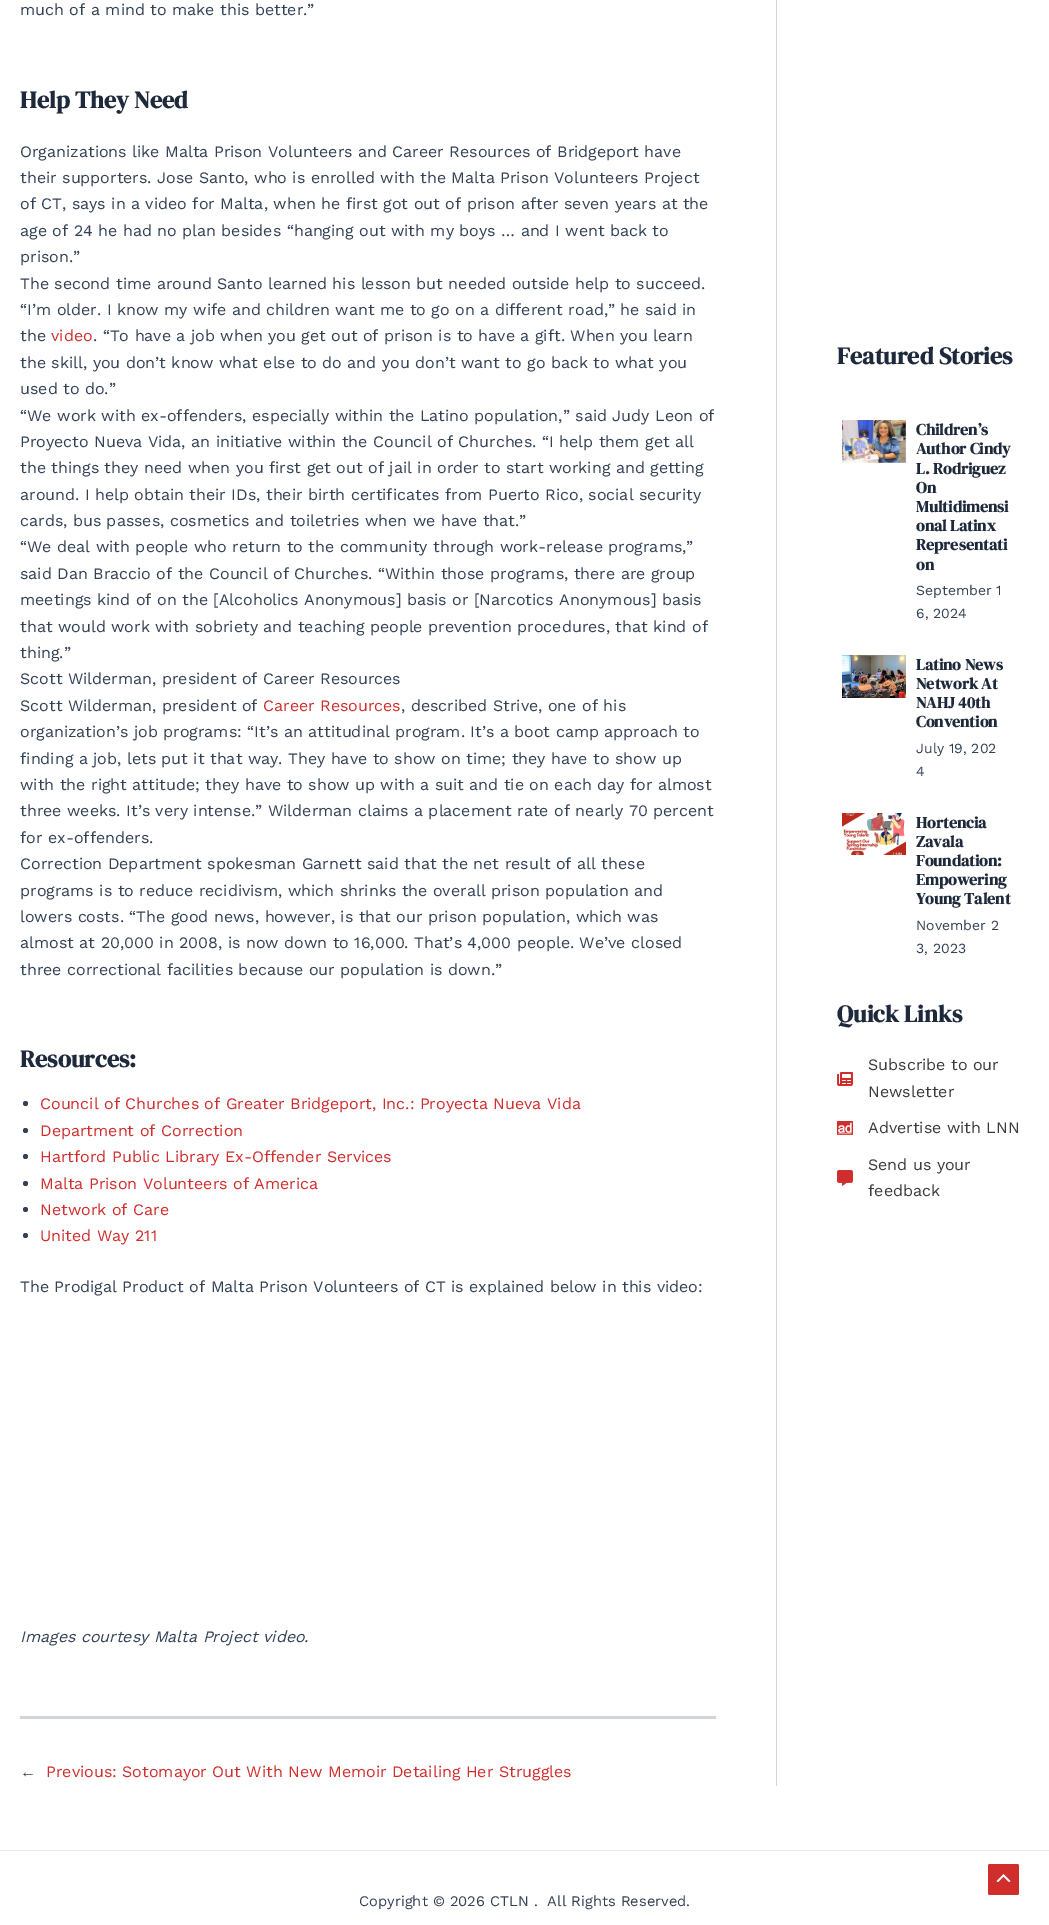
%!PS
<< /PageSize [1049 1925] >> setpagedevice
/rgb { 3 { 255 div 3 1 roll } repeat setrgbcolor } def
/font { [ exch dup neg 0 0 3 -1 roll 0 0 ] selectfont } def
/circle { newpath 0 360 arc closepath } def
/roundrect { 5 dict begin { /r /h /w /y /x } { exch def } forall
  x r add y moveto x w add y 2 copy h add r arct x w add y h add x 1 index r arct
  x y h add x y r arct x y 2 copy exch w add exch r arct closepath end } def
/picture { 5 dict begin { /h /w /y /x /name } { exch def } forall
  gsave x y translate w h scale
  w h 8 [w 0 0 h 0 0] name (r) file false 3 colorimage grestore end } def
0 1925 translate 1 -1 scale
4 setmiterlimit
255 255 255 rgb
0 0 1049 1925 rectfill
209 213 219 rgb
776 0 1 1786 rectfill
51 65 85 rgb
25.5 1103.5 2.5 circle fill
25.5 1130.5 2.5 circle fill
25.5 1156.5 2.5 circle fill
25.5 1183.5 2.5 circle fill
25.5 1209.5 2.5 circle fill
25.5 1235.5 2.5 circle fill
209 213 219 rgb
20 1716 696 3 rectfill
(img/1.rgb) 842 420 64 43 picture
(img/2.rgb) 842 655 64 43 picture
(img/3.rgb) 842 813 64 42 picture
(img/4.rgb) 837 1072 16 14 picture
(img/5.rgb) 837 1121 16 14 picture
(img/6.rgb) 837 1170 16 16 picture
234 234 234 rgb
0 1850 1049 1 rectfill
208 45 45 rgb
988 1864 31 31 2 roundrect fill
(img/7.rgb) 996 1874 15 8 picture
/WorkSans-Regular 16 font
51 65 85 rgb
20 15 moveto (much of a mind to make this better.”) show
/DMSerifDisplay-Bold 24 font
30 41 59 rgb
20 108 moveto (Help They Need) show
/WorkSans-Regular 16 font
51 65 85 rgb
[
  [(Organizations like Malta Prison Volunteers and Career Resources of Bridgeport have) 20 157]
  [(their supporters. Jose Santo, who is enrolled with the Malta Prison Volunteers Project) 20 183]
  [(of CT, says in a video for Malta, when he first got out of prison after seven years at the) 20 209]
  [(age of 24 he had no plan besides “hanging out with my boys … and I went back to) 20 236]
  [(prison.”) 20 262]
  [(The second time around Santo learned his lesson but needed outside help to succeed.) 20 289]
  [(“I’m older. I know my wife and children want me to go on a different road,” he said in) 20 315]
  [(the) 20 341]
] { aload pop moveto show } forall
208 45 45 rgb
51 341 moveto (video) show
51 65 85 rgb
[
  [(. “To have a job when you get out of prison is to have a gift. When you learn) 93 341]
  [(the skill, you don’t know what else to do and you don’t want to go back to what you) 20 368]
  [(used to do.”) 20 394]
  [(“We work with ex-offenders, especially within the Latino population,” said Judy Leon of) 20 421]
  [(Proyecto Nueva Vida, an initiative within the Council of Churches. “I help them get all) 20 447]
  [(the things they need when you first get out of jail in order to start working and getting) 20 473]
  [(around. I help obtain their IDs, their birth certificates from Puerto Rico, social security) 20 500]
  [(cards, bus passes, cosmetics and toiletries when we have that.”) 20 526]
  [(“We deal with people who return to the community through work-release programs,”) 20 552]
  [(said Dan Braccio of the Council of Churches. “Within those programs, there are group) 20 579]
  [(meetings kind of on the [Alcoholics Anonymous] basis or [Narcotics Anonymous] basis) 20 605]
  [(that would work with sobriety and teaching people prevention procedures, that kind of) 20 632]
  [(thing.”) 20 658]
  [(Scott Wilderman, president of Career Resources) 20 684]
  [(Scott Wilderman, president of) 20 711]
] { aload pop moveto show } forall
208 45 45 rgb
263 711 moveto (Career Resources) show
51 65 85 rgb
[
  [(, described Strive, one of his) 401 711]
  [(organization’s job programs: “It’s an attitudinal program. It’s a boot camp approach to) 20 737]
  [(finding a job, lets put it that way. They have to show on time; they have to show up) 20 764]
  [(with the right attitude; they have to show up with a suit and tie on each day for almost) 20 790]
  [(three weeks. It’s very intense.” Wilderman claims a placement rate of nearly 70 percent) 20 816]
  [(for ex-offenders.) 20 843]
  [(Correction Department spokesman Garnett said that the net result of all these) 20 869]
  [(programs is to reduce recidivism, which shrinks the overall prison population and) 20 896]
  [(lowers costs. “The good news, however, is that our prison population, which was) 20 922]
  [(almost at 20,000 in 2008, is now down to 16,000. That’s 4,000 people. We’ve closed) 20 948]
  [(three correctional facilities because our population is down.”) 20 975]
] { aload pop moveto show } forall
/DMSerifDisplay-Bold 24 font
30 41 59 rgb
20 1067 moveto (Resources:) show
/WorkSans-Regular 16 font
208 45 45 rgb
[
  [(Council of Churches of Greater Bridgeport, Inc.: Proyecta Nueva Vida) 40 1109]
  [(Department of Correction) 40 1136]
  [(Hartford Public Library Ex-Offender Services) 40 1162]
  [(Malta Prison Volunteers of America) 40 1189]
  [(Network of Care) 40 1215]
  [(United Way 211) 40 1241]
] { aload pop moveto show } forall
51 65 85 rgb
20 1292 moveto (The Prodigal Product of Malta Prison Volunteers of CT is explained below in this video:) show
/WorkSans-Italic 16 font
20 1642 moveto (Images courtesy Malta Project video.) show
/LiberationSans-Regular 16 font
20 1777 moveto (←) show
/WorkSans-Regular 16 font
208 45 45 rgb
46 1777 moveto (Previous: Sotomayor Out With New Memoir Detailing Her Struggles) show
/DMSerifDisplay-Bold 24 font
30 41 59 rgb
837 364 moveto (Featured Stories) show
/DMSerifDisplay-Bold 16 font
[
  [(Children’s) 916 435]
  [(Author Cindy) 916 454]
  [(L. Rodriguez) 916 474]
  [(On) 916 493]
  [(Multidimensi) 916 512]
  [(onal Latinx) 916 531]
  [(Representati) 916 550]
  [(on) 916 570]
] { aload pop moveto show } forall
/WorkSans-Regular 14 font
51 65 85 rgb
916 595 moveto (September 1) show
916 618 moveto (6, 2024) show
/DMSerifDisplay-Bold 16 font
30 41 59 rgb
[
  [(Latino News) 916 670]
  [(Network At) 916 689]
  [(NAHJ 40th) 916 708]
  [(Convention) 916 727]
] { aload pop moveto show } forall
/WorkSans-Regular 14 font
51 65 85 rgb
916 753 moveto (July 19, 202) show
916 776 moveto (4) show
/DMSerifDisplay-Bold 16 font
30 41 59 rgb
[
  [(Hortencia) 916 828]
  [(Zavala) 916 847]
  [(Foundation:) 916 866]
  [(Empowering) 916 885]
  [(Young Talent) 916 904]
] { aload pop moveto show } forall
/WorkSans-Regular 14 font
51 65 85 rgb
916 930 moveto (November 2) show
916 953 moveto (3, 2023) show
/DMSerifDisplay-Bold 24 font
30 41 59 rgb
837 1022 moveto (Quick Links) show
/WorkSans-Regular 16 font
58 58 58 rgb
[
  [(Subscribe to our) 868 1070]
  [(Newsletter) 868 1097]
  [(Advertise with LNN) 868 1133]
  [(Send us your) 868 1170]
  [(feedback) 868 1196]
] { aload pop moveto show } forall
/WorkSans-Regular 14.7 font
51 65 85 rgb
359 1906 moveto (Copyright © 2026 CTLN .  All Rights Reserved.) show
showpage
